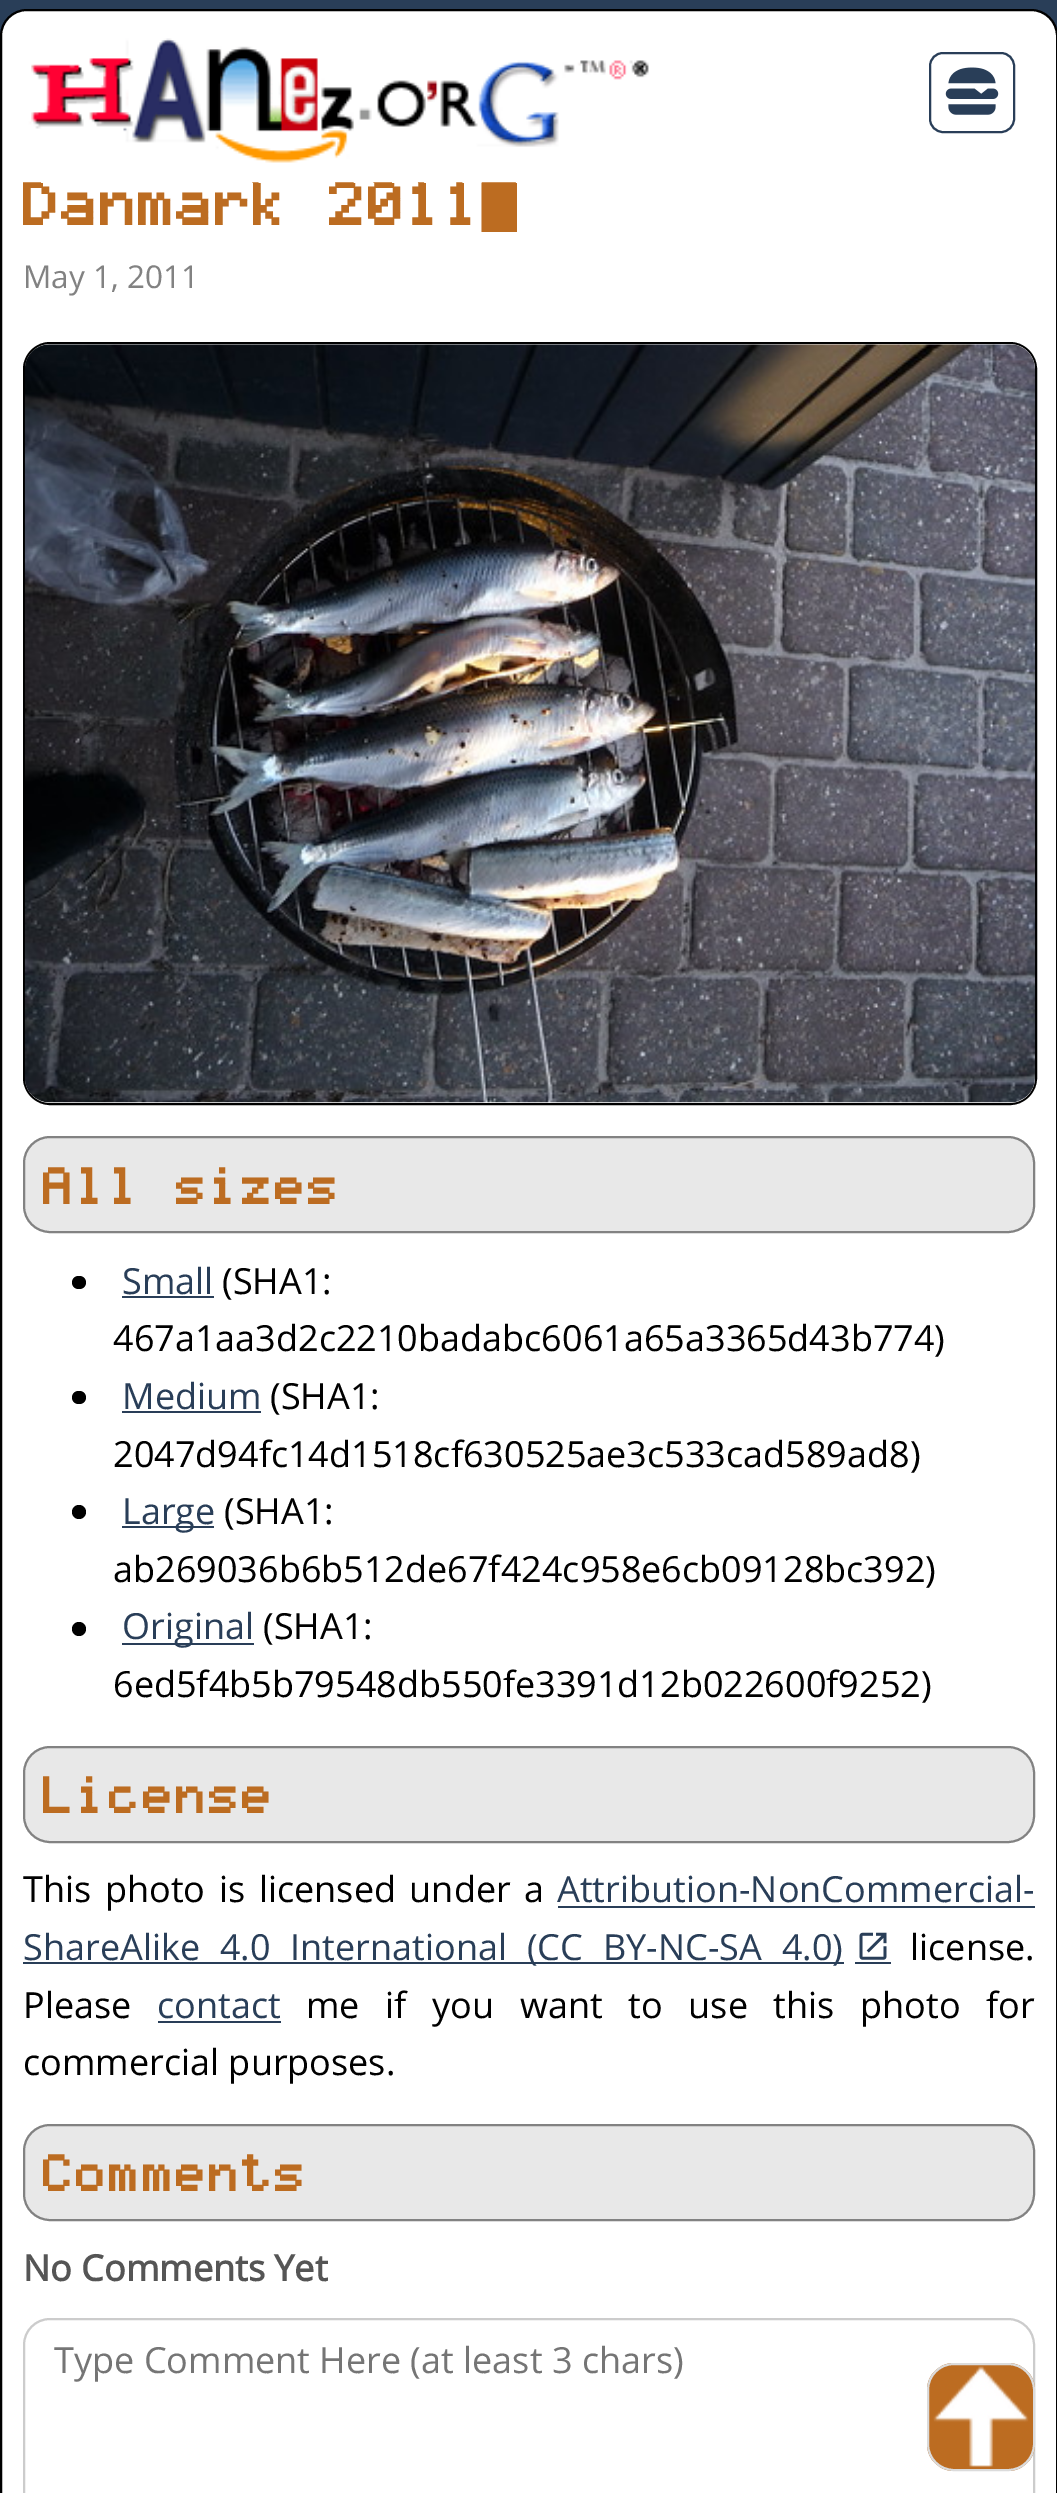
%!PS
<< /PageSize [1057 2493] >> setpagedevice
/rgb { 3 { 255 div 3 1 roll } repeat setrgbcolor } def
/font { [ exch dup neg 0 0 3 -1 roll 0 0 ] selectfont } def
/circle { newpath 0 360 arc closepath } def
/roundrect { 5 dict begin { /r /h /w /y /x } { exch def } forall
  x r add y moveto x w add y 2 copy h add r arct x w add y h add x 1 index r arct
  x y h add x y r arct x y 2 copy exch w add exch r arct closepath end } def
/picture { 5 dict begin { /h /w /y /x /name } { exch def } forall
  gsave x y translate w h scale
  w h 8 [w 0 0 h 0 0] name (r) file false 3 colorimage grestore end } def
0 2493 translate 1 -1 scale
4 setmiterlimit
41 62 88 rgb
0 0 1057 2493 rectfill
255 255 255 rgb
1 10 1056 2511 26 roundrect gsave fill grestore
0 0 0 rgb
2 setlinewidth
stroke
41 62 88 rgb
930 53 84 79 13 roundrect stroke
(img/2.rgb) 945 67 54 48 picture
0 0 0 rgb
24 343 1012 761 26 roundrect stroke
(img/3.rgb) 24 344 1011 759 picture
232 232 232 rgb
24 1137 1010 95 26 roundrect gsave fill grestore
130 130 130 rgb
stroke
0 0 0 rgb
72 1276 14 13 6.5 roundrect fill
41 62 88 rgb
122 1296 92 2 rectfill
0 0 0 rgb
72 1391 14 13 6.5 roundrect fill
41 62 88 rgb
122 1411 139 2 rectfill
0 0 0 rgb
79 1512 7 circle fill
41 62 88 rgb
122 1526 92 2 rectfill
0 0 0 rgb
79 1629 7 circle fill
41 62 88 rgb
122 1643 132 2 rectfill
232 232 232 rgb
24 1747 1010 95 26 roundrect gsave fill grestore
130 130 130 rgb
stroke
[
  [558 1906 477 2 41 62 88]
  [23 1962 821 2 41 62 88]
  [855 1962 36 2 41 62 88]
] { aload pop rgb rectfill } forall
(img/4.rgb) 859 1932 28 28 picture
158 2021 123 2 rectfill
232 232 232 rgb
24 2125 1010 95 26 roundrect gsave fill grestore
130 130 130 rgb
stroke
204 204 204 rgb
24 2319 1010 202 26 roundrect stroke
188 108 33 rgb
927 2363 108 108 27 roundrect fill
(img/5.rgb) 933 2366 96 101 picture
219 219 219 rgb
928 2364 106 106 26 roundrect stroke
gsave
23 182 1012 50 rectclip
/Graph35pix-Bold 49.5 font
188 108 33 rgb
23 225 moveto -2.25 0 (Danmark 2011) ashow
/DejaVuSans-Bold 49.5 font
482 225 moveto -2.25 0 (▉) ashow
grestore
(img/1.rgb) 23 38 626 145 picture
/OpenSans-Regular 31.5 font
130 130 130 rgb
23 288 moveto (May 1, 2011) show
/Graph35pix-Bold 40.5 font
188 108 33 rgb
43 1204 moveto (All sizes) show
/OpenSans-Regular 36 font
41 62 88 rgb
122 1294 moveto (Small) show
0 0 0 rgb
222 1294 moveto (\(SHA1:) show
113 1351 moveto (467a1aa3d2c2210badabc6061a65a3365d43b774\)) show
41 62 88 rgb
122 1409 moveto (Medium) show
0 0 0 rgb
270 1409 moveto (\(SHA1:) show
113 1467 moveto (2047d94fc14d1518cf630525ae3c533cad589ad8\)) show
41 62 88 rgb
122 1524 moveto (Large) show
0 0 0 rgb
224 1524 moveto (\(SHA1:) show
113 1582 moveto (ab269036b6b512de67f424c958e6cb09128bc392\)) show
41 62 88 rgb
122 1639 moveto (Original) show
0 0 0 rgb
263 1639 moveto (\(SHA1:) show
113 1697 moveto (6ed5f4b5b79548db550fe3391d12b022600f9252\)) show
/Graph35pix-Bold 40.5 font
188 108 33 rgb
43 1813 moveto (License) show
/OpenSans-Regular 36 font
0 0 0 rgb
23 1902 moveto 4.25 0 32 (This photo is licensed under a) widthshow
41 62 88 rgb
557 1902 moveto (Attribution-NonCommercial-) show
23 1960 moveto 10.5 0 32 (ShareAlike 4.0 International \(CC BY-NC-SA 4.0\)) widthshow
0 0 0 rgb
910 1960 moveto (license.) show
23 2018 moveto (Please) show
41 62 88 rgb
157 2018 moveto (contact) show
0 0 0 rgb
306 2018 moveto 16.25 0 32 (me if you want to use this photo for) widthshow
23 2075 moveto (commercial purposes.) show
/Graph35pix-Bold 40.5 font
188 108 33 rgb
43 2191 moveto (Comments) show
/OpenSans-Bold 36 font
85 85 85 rgb
23 2281 moveto (No Comments Yet) show
/OpenSans-Regular 36 font
117 117 117 rgb
54 2373 moveto (Type Comment Here \(at least 3 chars\)) show
showpage
